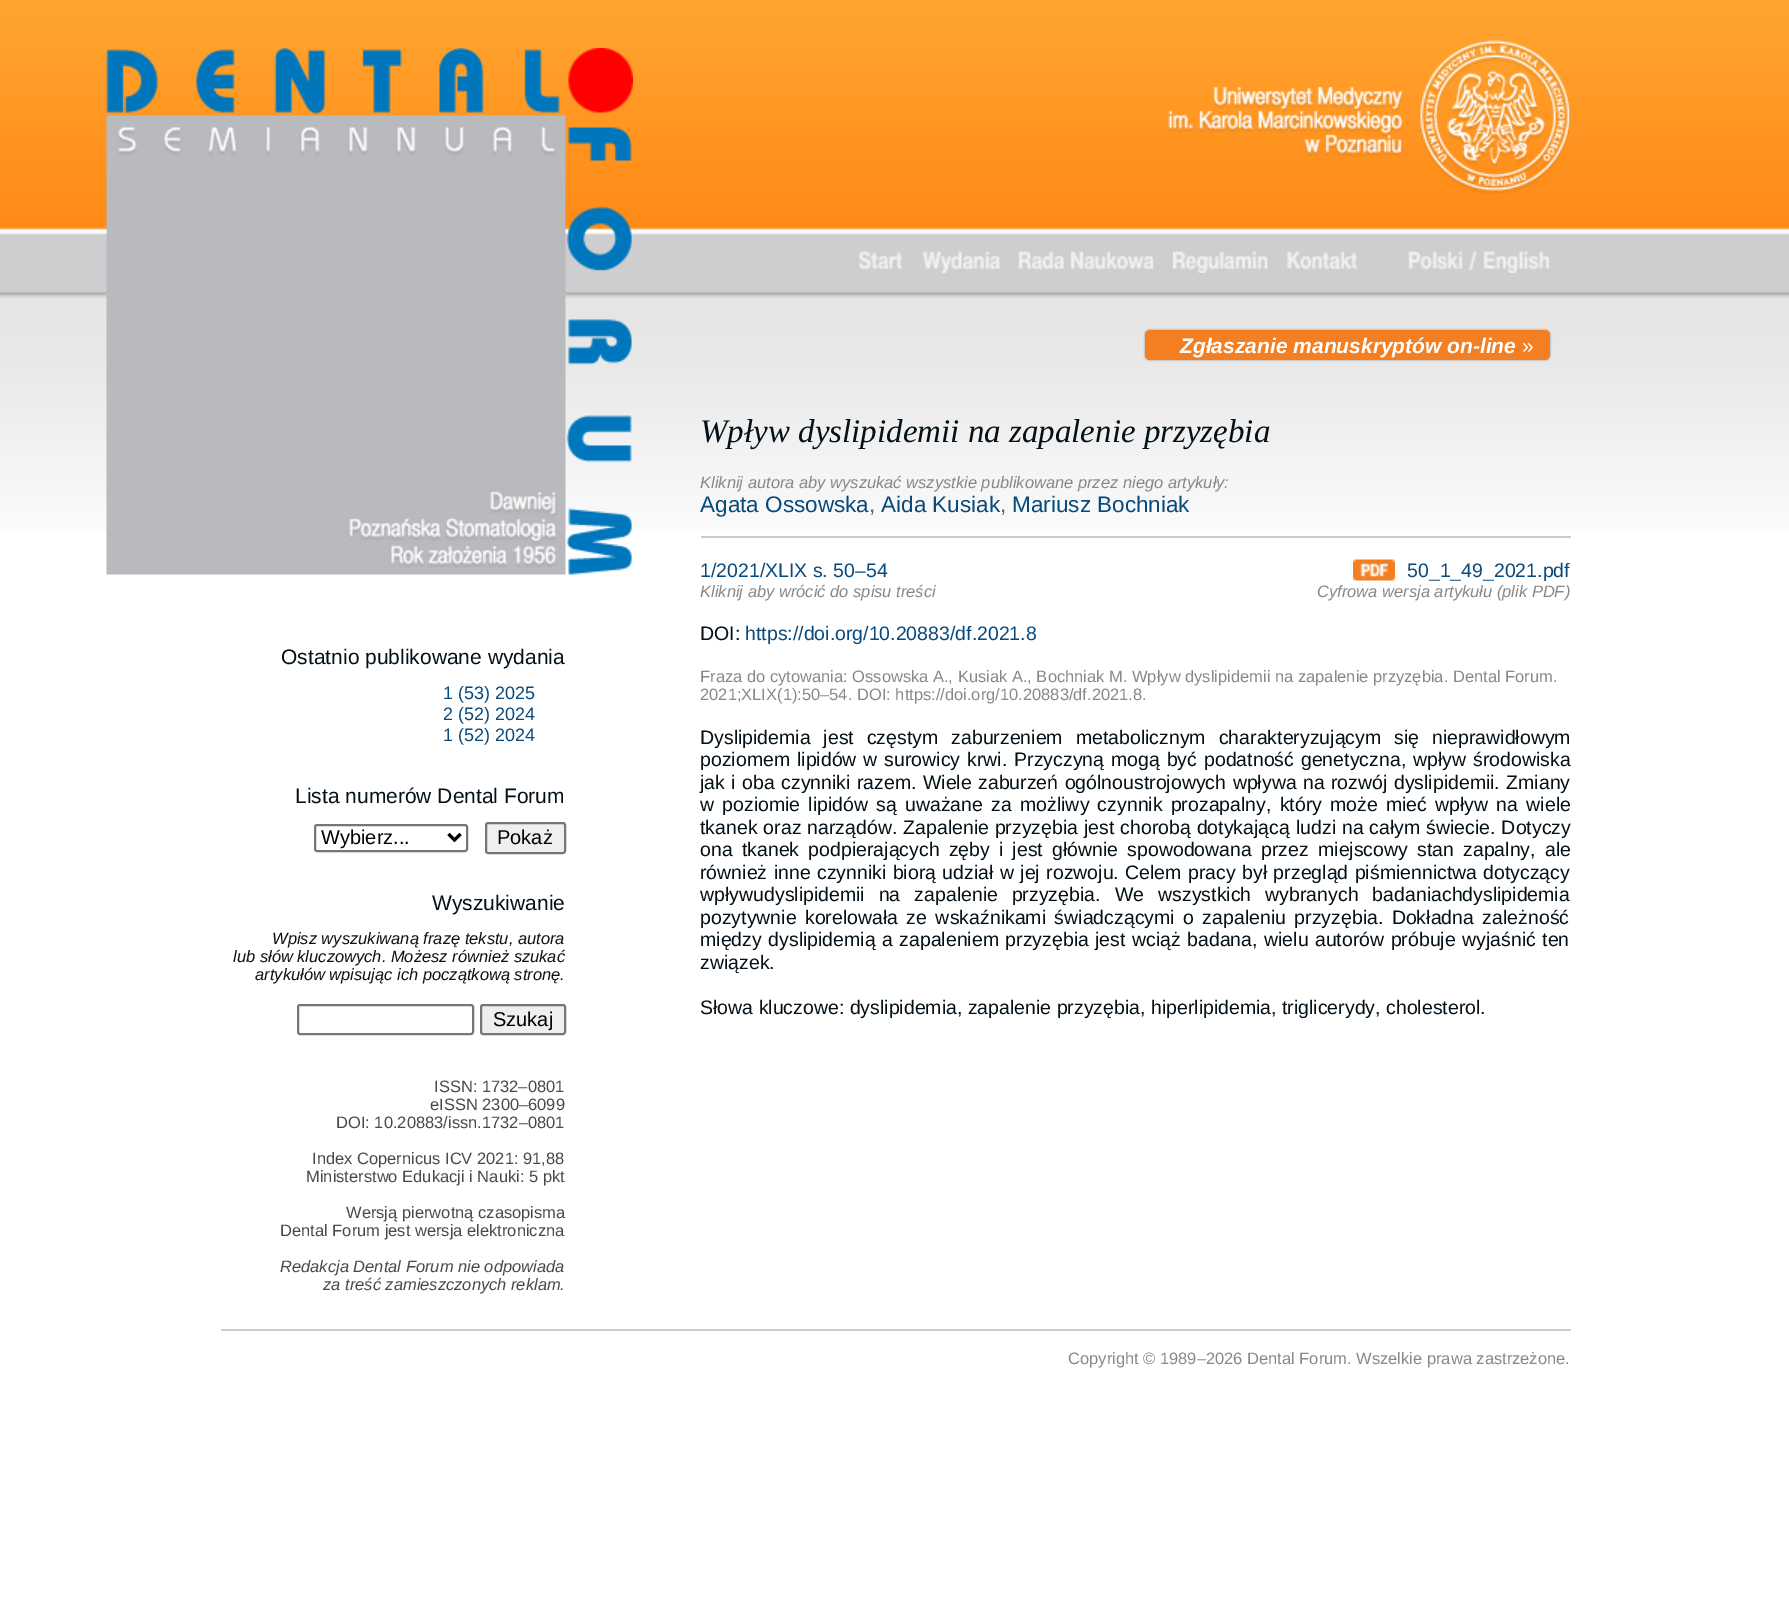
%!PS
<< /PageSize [1789 1611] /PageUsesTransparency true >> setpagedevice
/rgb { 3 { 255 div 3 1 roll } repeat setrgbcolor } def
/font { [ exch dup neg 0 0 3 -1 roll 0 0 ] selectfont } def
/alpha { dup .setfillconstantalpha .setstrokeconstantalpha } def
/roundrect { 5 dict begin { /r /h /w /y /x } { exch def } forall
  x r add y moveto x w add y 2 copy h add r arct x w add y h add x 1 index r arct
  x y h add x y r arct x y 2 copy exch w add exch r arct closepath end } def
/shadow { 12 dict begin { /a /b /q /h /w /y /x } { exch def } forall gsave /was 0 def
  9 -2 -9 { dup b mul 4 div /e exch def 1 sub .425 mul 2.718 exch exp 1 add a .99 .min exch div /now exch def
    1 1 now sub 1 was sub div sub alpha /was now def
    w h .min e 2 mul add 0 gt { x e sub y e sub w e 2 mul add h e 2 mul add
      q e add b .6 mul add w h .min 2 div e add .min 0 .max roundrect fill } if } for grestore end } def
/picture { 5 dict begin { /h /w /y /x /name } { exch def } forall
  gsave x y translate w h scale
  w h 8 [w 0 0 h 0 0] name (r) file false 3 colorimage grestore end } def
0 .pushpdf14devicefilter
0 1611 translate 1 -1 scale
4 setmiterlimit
255 255 255 rgb
0 0 1789 1611 rectfill
(img/1.rgb) 0 0 1789 531 picture
(img/2.rgb) 106 48 527 527 picture
(img/3.rgb) 858 251 45 19 picture
(img/4.rgb) 922 251 78 22 picture
(img/5.rgb) 1018 251 136 19 picture
(img/6.rgb) 1173 251 95 22 picture
(img/7.rgb) 1287 251 71 19 picture
(img/8.rgb) 1168 40 402 154 picture
(img/9.rgb) 1408 251 55 19 picture
(img/10.rgb) 1468 251 9 19 picture
(img/11.rgb) 1483 251 67 22 picture
0 0 0 rgb
1145 330 405 30 5 1 0.4 shadow
243 127 34 rgb
1145 330 405 30 5 roundrect fill
118 118 118 rgb
2 setlinewidth
315 825 152 26 2 roundrect stroke
0 0 0 rgb
3 setlinewidth
448.5 834 moveto 454.5 840 lineto 460.5 834 lineto stroke
239 239 239 rgb
486 823 79 30 2 roundrect gsave fill grestore
118 118 118 rgb
2 setlinewidth
stroke
298 1005 175 29 2 roundrect stroke
239 239 239 rgb
481 1005 84 29 2 roundrect gsave fill grestore
118 118 118 rgb
stroke
204 204 204 rgb
701 536 870 2 rectfill
(img/12.rgb) 1353 559 42 22 picture
221 1329 1350 2 rectfill
/LiberationSans-BoldItalic 21 font
255 255 255 rgb
1180 353 moveto (Zgłaszanie manuskryptów on-line) show
/LiberationSans-Regular 21 font
1522 353 moveto (») show
4 16 23 rgb
281 664 moveto (Ostatnio publikowane wydania) show
/LiberationSans-Regular 18 font
9 74 125 rgb
[
  [(1 \(53\) 2025) 443 699]
  [(2 \(52\) 2024) 443 720]
  [(1 \(52\) 2024) 443 741]
] { aload pop moveto show } forall
/LiberationSans-Regular 21 font
4 16 23 rgb
295 803 moveto (Lista numerów Dental Forum) show
/LiberationSans-Regular 20 font
0 0 0 rgb
321 844 moveto (Wybierz...) show
497 844 moveto (Pokaż) show
/LiberationSans-Regular 21 font
4 16 23 rgb
432 910 moveto (Wyszukiwanie) show
/LiberationSans-Italic 16.5 font
17 17 17 rgb
[
  [(Wpisz wyszukiwaną frazę tekstu, autora) 272 944]
  [(lub słów kluczowych. Możesz również szukać) 233 962]
  [(artykułów wpisując ich początkową stronę.) 255 980]
] { aload pop moveto show } forall
/LiberationSans-Regular 20 font
0 0 0 rgb
493 1026 moveto (Szukaj) show
/LiberationSans-Regular 16.5 font
73 73 73 rgb
[
  [(ISSN: 1732–0801) 434 1092]
  [(eISSN 2300–6099) 430 1110]
  [(DOI: 10.20883/issn.1732–0801) 336 1128]
  [(Index Copernicus ICV 2021: 91,88) 312 1164]
  [(Ministerstwo Edukacji i Nauki: 5 pkt) 306 1182]
  [(Wersją pierwotną czasopisma) 346 1218]
  [(Dental Forum jest wersja elektroniczna) 280 1236]
] { aload pop moveto show } forall
/LiberationSans-Italic 16.5 font
280 1272 moveto (Redakcja Dental Forum nie odpowiada) show
323 1290 moveto (za treść zamieszczonych reklam.) show
/LiberationSerif-Italic 33 font
4 16 23 rgb
700 442 moveto (Wpływ dyslipidemii na zapalenie przyzębia) show
/LiberationSans-Italic 16.5 font
136 136 136 rgb
700 488 moveto (Kliknij autora aby wyszukać wszystkie publikowane przez niego artykuły:) show
/LiberationSans-Regular 22.5 font
9 74 125 rgb
700 512 moveto (Agata Ossowska) show
102 102 102 rgb
869 512 moveto (,) show
9 74 125 rgb
881 512 moveto (Aida Kusiak) show
102 102 102 rgb
1000 512 moveto (,) show
9 74 125 rgb
1012 512 moveto (Mariusz Bochniak) show
/LiberationSans-Regular 19.5 font
700 577 moveto (1/2021/XLIX s. 50–54) show
/LiberationSans-Italic 16.5 font
136 136 136 rgb
700 597 moveto (Kliknij aby wrócić do spisu treści) show
/LiberationSans-Regular 19.5 font
9 74 125 rgb
1407 577 moveto (50_1_49_2021.pdf) show
/LiberationSans-Italic 16.5 font
136 136 136 rgb
1317 597 moveto (Cyfrowa wersja artykułu \(plik PDF\)) show
/LiberationSans-Regular 19.5 font
4 16 23 rgb
700 640 moveto (DOI:) show
9 74 125 rgb
745 640 moveto (https://doi.org/10.20883/df.2021.8) show
/LiberationSans-Regular 16.5 font
136 136 136 rgb
700 682 moveto (Fraza do cytowania: Ossowska A., Kusiak A., Bochniak M. Wpływ dyslipidemii na zapalenie przyzębia. Dental Forum.) show
700 700 moveto (2021;XLIX\(1\):50–54. DOI: https://doi.org/10.20883/df.2021.8.) show
/LiberationSans-Regular 19.5 font
4 16 23 rgb
700 744 moveto 7.5 0 32 (Dyslipidemia jest częstym zaburzeniem metabolicznym charakteryzującym się nieprawidłowym) widthshow
700 766 moveto 1.5 0 32 (poziomem lipidów w surowicy krwi. Przyczyną mogą być podatność genetyczna, wpływ środowiska) widthshow
700 789 moveto 1 0 32 (jak i oba czynniki razem. Wiele zaburzeń ogólnoustrojowych wpływa na rozwój dyslipidemii. Zmiany) widthshow
700 811 moveto 2.75 0 32 (w poziomie lipidów są uważane za możliwy czynnik prozapalny, który może mieć wpływ na wiele) widthshow
700 834 moveto 0.5 0 32 (tkanek oraz narządów. Zapalenie przyzębia jest chorobą dotykającą ludzi na całym świecie. Dotyczy) widthshow
700 856 moveto 3.75 0 32 (ona tkanek podpierających zęby i jest głównie spowodowana przez miejscowy stan zapalny, ale) widthshow
700 879 moveto 1 0 32 (również inne czynniki biorą udział w jej rozwoju.) widthshow
1125 879 moveto (Celem) show
1188 879 moveto 1 0 32 (pracy był przegląd piśmiennictwa) widthshow
1483 879 moveto (dotyczący) show
700 901 moveto 8.5 0 32 (wpływudyslipidemii na zapalenie przyzębia.) widthshow
1115 901 moveto 8.5 0 32 (We wszystkich wybranych badaniachdyslipidemia) widthshow
700 924 moveto 3 0 32 (pozytywnie korelowała ze wskaźnikami świadczącymi o zapaleniu przyzębia. Dokładna zależność) widthshow
700 946 moveto 1 0 32 (między dyslipidemią a zapaleniem przyzębia jest wciąż badana, wielu autorów próbuje wyjaśnić ten) widthshow
700 969 moveto (związek.) show
700 1014 moveto (Słowa kluczowe: dyslipidemia, zapalenie przyzębia, hiperlipidemia, triglicerydy, cholesterol.) show
/LiberationSans-Regular 16.5 font
136 136 136 rgb
1068 1364 moveto (Copyright © 1989–2026 Dental Forum. Wszelkie prawa zastrzeżone.) show
.poppdf14devicefilter showpage
